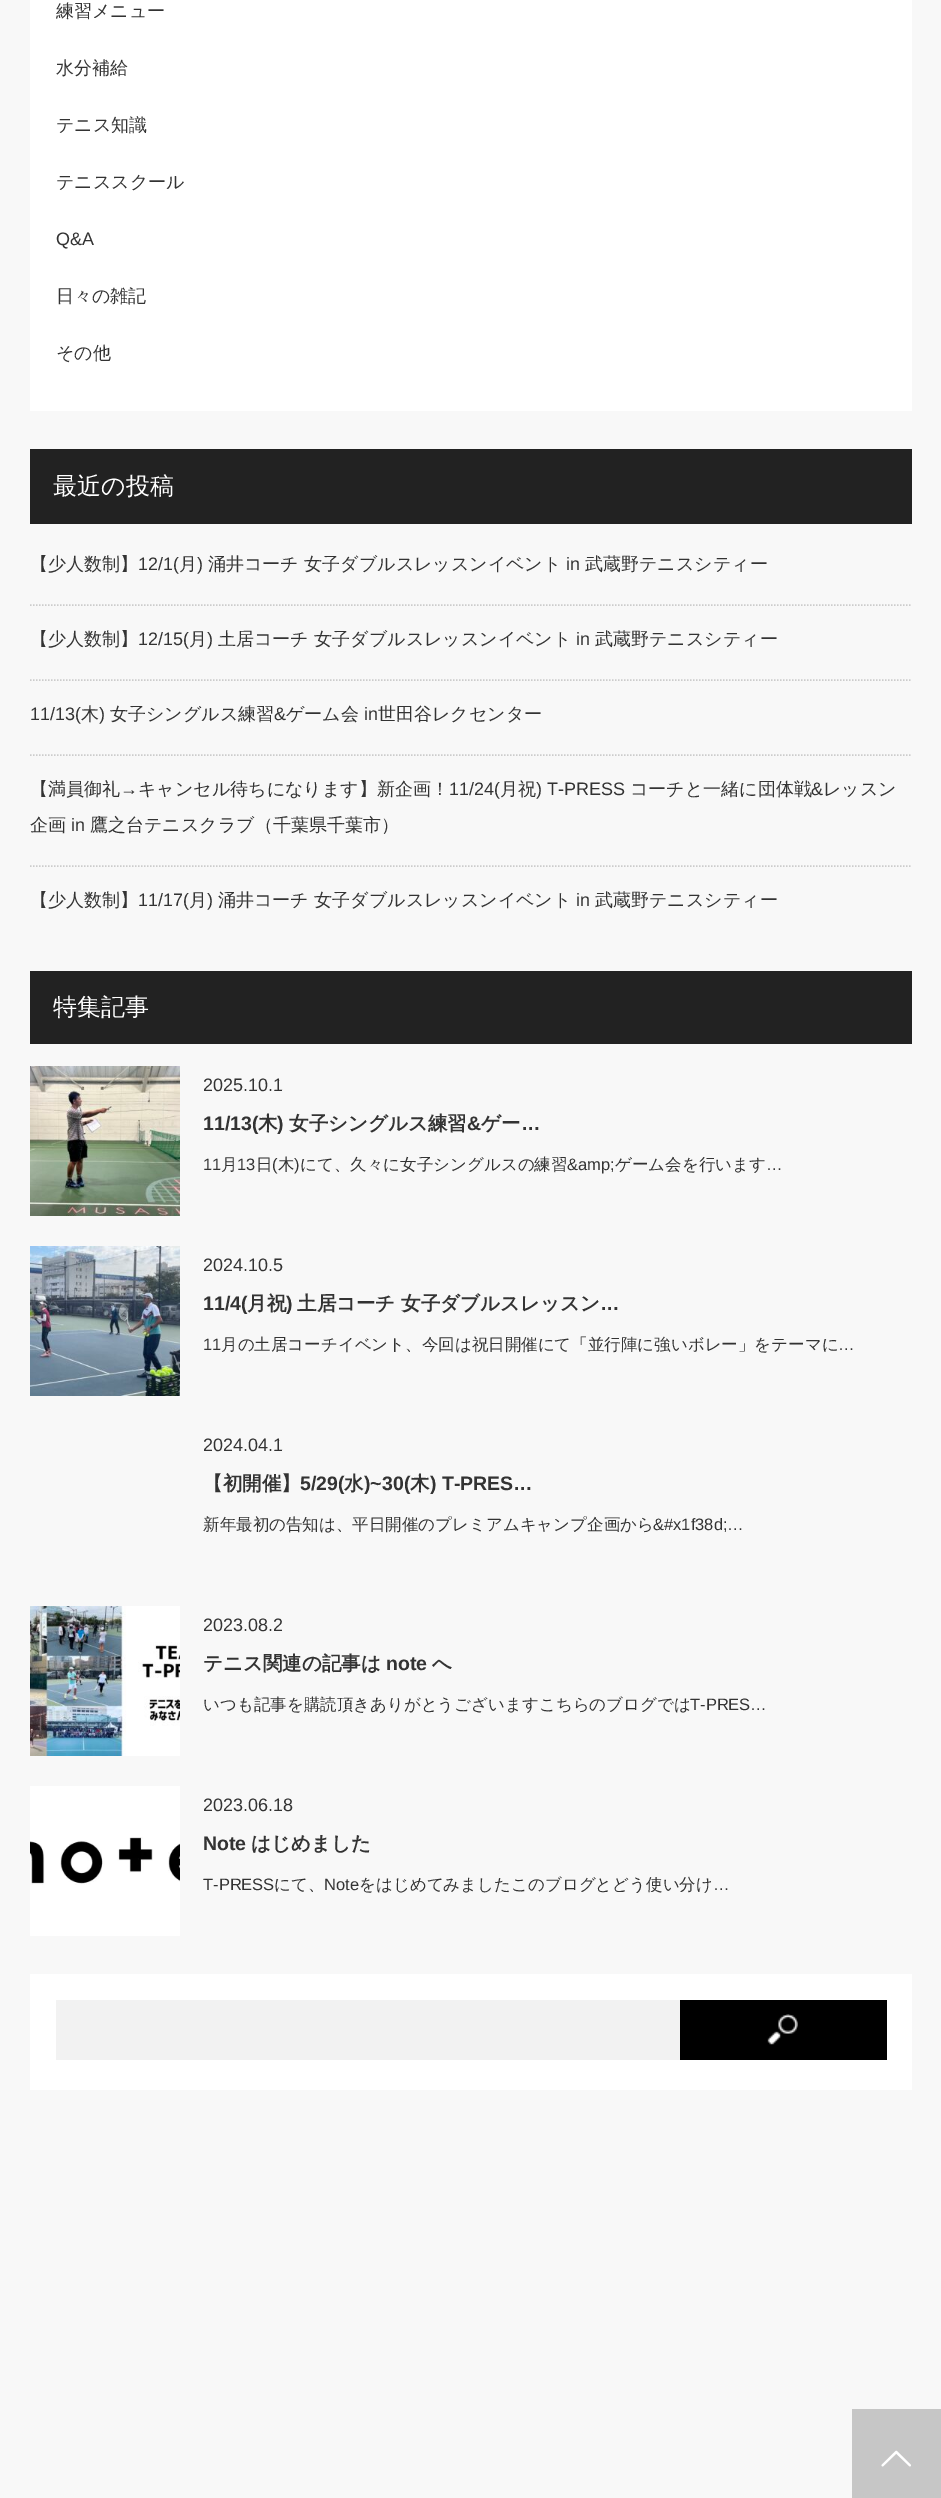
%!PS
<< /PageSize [941 2498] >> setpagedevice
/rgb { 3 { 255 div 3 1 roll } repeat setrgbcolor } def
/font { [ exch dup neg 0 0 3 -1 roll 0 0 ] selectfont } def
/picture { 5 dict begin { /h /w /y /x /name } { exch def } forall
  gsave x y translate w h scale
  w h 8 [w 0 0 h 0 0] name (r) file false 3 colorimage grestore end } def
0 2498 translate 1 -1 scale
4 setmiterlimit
248 248 248 rgb
0 0 941 2498 rectfill
255 255 255 rgb
30 0 882 411 rectfill
34 34 34 rgb
30 449 882 75 rectfill
204 204 204 rgb
1.5 setlinewidth
[1.5 1.5] 0 setdash
30 605 moveto 912 605 lineto stroke
30 680 moveto 912 680 lineto stroke
30 755 moveto 912 755 lineto stroke
30 866 moveto 912 866 lineto stroke
34 34 34 rgb
30 971 882 73 rectfill
(img/1.rgb) 30 1066 150 150 picture
(img/2.rgb) 30 1246 150 150 picture
(img/3.rgb) 30 1606 150 150 picture
(img/4.rgb) 30 1786 150 150 picture
[
  [30 1974 882 116 255 255 255]
  [56 2000 624 60 242 242 242]
  [680 2000 207 60 0 0 0]
] { aload pop rgb rectfill } forall
(img/5.rgb) 767 2014 31 31 picture
198 198 198 rgb
852 2409 89 89 rectfill
(img/6.rgb) 881 2450 30 17 picture
/WenQuanYiZenHei-Medium 18 font
51 51 51 rgb
[
  [(練習メニュー) 56 17]
  [(水分補給) 56 74]
  [(テニス知識) 56 131]
  [(テニススクール) 56 188]
] { aload pop moveto show } forall
/LiberationSans-Regular 18 font
56 245 moveto (Q&A) show
/WenQuanYiZenHei-Medium 18 font
56 302 moveto (日々の雑記) show
56 359 moveto (その他) show
/WenQuanYiZenHei-Medium 24 font
255 255 255 rgb
53 494 moveto (最近の投稿) show
/WenQuanYiZenHei-Medium 18 font
51 51 51 rgb
30 570 moveto (【少人数制】) show
/LiberationSans-Regular 18 font
138 570 moveto (12/1\() show
/WenQuanYiZenHei-Medium 18 font
179 570 moveto (月) show
/LiberationSans-Regular 18 font
197 570 moveto (\)) show
/WenQuanYiZenHei-Medium 18 font
208 570 moveto (涌井コーチ 女子ダブルスレッスンイベント) show
/LiberationSans-Regular 18 font
566 570 moveto (in) show
/WenQuanYiZenHei-Medium 18 font
585 570 moveto (武蔵野テニスシティー) show
30 645 moveto (【少人数制】) show
/LiberationSans-Regular 18 font
138 645 moveto (12/15\() show
/WenQuanYiZenHei-Medium 18 font
189 645 moveto (月) show
/LiberationSans-Regular 18 font
207 645 moveto (\)) show
/WenQuanYiZenHei-Medium 18 font
218 645 moveto (土居コーチ 女子ダブルスレッスンイベント) show
/LiberationSans-Regular 18 font
576 645 moveto (in) show
/WenQuanYiZenHei-Medium 18 font
595 645 moveto (武蔵野テニスシティー) show
/LiberationSans-Regular 18 font
30 720 moveto (11/13\() show
/WenQuanYiZenHei-Medium 18 font
81 720 moveto (木) show
/LiberationSans-Regular 18 font
99 720 moveto (\)) show
/WenQuanYiZenHei-Medium 18 font
110 720 moveto (女子シングルス練習) show
/LiberationSans-Regular 18 font
274 720 moveto (&) show
/WenQuanYiZenHei-Medium 18 font
286 720 moveto (ゲーム会) show
/LiberationSans-Regular 18 font
364 720 moveto (in) show
/WenQuanYiZenHei-Medium 18 font
378 720 moveto (世田谷レクセンター) show
30 795 moveto (【満員御礼) show
/LiberationSans-Regular 18 font
120 795 moveto (→) show
/WenQuanYiZenHei-Medium 18 font
138 795 moveto (キャンセル待ちになります】新企画！) show
/LiberationSans-Regular 18 font
449 795 moveto (11/24\() show
/WenQuanYiZenHei-Medium 18 font
500 795 moveto (月祝) show
/LiberationSans-Regular 18 font
536 795 moveto (\) T-PRESS) show
/WenQuanYiZenHei-Medium 18 font
630 795 moveto (コーチと一緒に団体戦) show
/LiberationSans-Regular 18 font
811 795 moveto (&) show
/WenQuanYiZenHei-Medium 18 font
823 795 moveto (レッスン) show
30 831 moveto (企画) show
/LiberationSans-Regular 18 font
71 831 moveto (in) show
/WenQuanYiZenHei-Medium 18 font
90 831 moveto (鷹之台テニスクラブ（千葉県千葉市）) show
30 906 moveto (【少人数制】) show
/LiberationSans-Regular 18 font
138 906 moveto (11/17\() show
/WenQuanYiZenHei-Medium 18 font
189 906 moveto (月) show
/LiberationSans-Regular 18 font
207 906 moveto (\)) show
/WenQuanYiZenHei-Medium 18 font
218 906 moveto (涌井コーチ 女子ダブルスレッスンイベント) show
/LiberationSans-Regular 18 font
576 906 moveto (in) show
/WenQuanYiZenHei-Medium 18 font
595 906 moveto (武蔵野テニスシティー) show
/WenQuanYiZenHei-Medium 24 font
255 255 255 rgb
53 1015 moveto (特集記事) show
/LiberationSans-Regular 18 font
51 51 51 rgb
203 1091 moveto (2025.10.1) show
/LiberationSans-Bold 19.5 font
203 1130 moveto (11/13\() show
/WenQuanYiZenHei-Bold 19.5 font
258 1130 moveto (木) show
/LiberationSans-Bold 19.5 font
277 1130 moveto (\)) show
/WenQuanYiZenHei-Bold 19.5 font
289 1130 moveto (女子シングルス練習) show
/LiberationSans-Bold 19.5 font
467 1130 moveto (&) show
/WenQuanYiZenHei-Bold 19.5 font
481 1130 moveto (ゲー) show
/LiberationSans-Bold 19.5 font
521 1130 moveto (…) show
/LiberationSans-Regular 16.5 font
203 1170 moveto (11) show
/WenQuanYiZenHei-Medium 16.5 font
221 1170 moveto (月) show
/LiberationSans-Regular 16.5 font
237 1170 moveto (13) show
/WenQuanYiZenHei-Medium 16.5 font
256 1170 moveto (日) show
/LiberationSans-Regular 16.5 font
272 1170 moveto (\() show
/WenQuanYiZenHei-Medium 16.5 font
278 1170 moveto (木) show
/LiberationSans-Regular 16.5 font
294 1170 moveto (\)) show
/WenQuanYiZenHei-Medium 16.5 font
300 1170 moveto (にて、久々に女子シングルスの練習) show
/LiberationSans-Regular 16.5 font
567 1170 moveto (&amp;) show
/WenQuanYiZenHei-Medium 16.5 font
615 1170 moveto (ゲーム会を行います) show
/LiberationSans-Regular 16.5 font
766 1170 moveto (…) show
/LiberationSans-Regular 18 font
203 1271 moveto (2024.10.5) show
/LiberationSans-Bold 19.5 font
203 1310 moveto (11/4\() show
/WenQuanYiZenHei-Bold 19.5 font
247 1310 moveto (月祝) show
/LiberationSans-Bold 19.5 font
286 1310 moveto (\)) show
/WenQuanYiZenHei-Bold 19.5 font
297 1310 moveto (土居コーチ 女子ダブルスレッスン) show
/LiberationSans-Bold 19.5 font
600 1310 moveto (…) show
/LiberationSans-Regular 16.5 font
203 1350 moveto (11) show
/WenQuanYiZenHei-Medium 16.5 font
221 1350 moveto (月の土居コーチイベント、今回は祝日開催にて「並行陣に強いボレー」をテーマに) show
/LiberationSans-Regular 16.5 font
838 1350 moveto (…) show
/LiberationSans-Regular 18 font
203 1451 moveto (2024.04.1) show
/WenQuanYiZenHei-Bold 19.5 font
203 1490 moveto (【初開催】) show
/LiberationSans-Bold 19.5 font
300 1490 moveto (5/29\() show
/WenQuanYiZenHei-Bold 19.5 font
344 1490 moveto (水) show
/LiberationSans-Bold 19.5 font
364 1490 moveto (\)~30\() show
/WenQuanYiZenHei-Bold 19.5 font
410 1490 moveto (木) show
/LiberationSans-Bold 19.5 font
430 1490 moveto (\) T-PRES…) show
/WenQuanYiZenHei-Medium 16.5 font
203 1530 moveto (新年最初の告知は、平日開催のプレミアムキャンプ企画から) show
/LiberationSans-Regular 16.5 font
653 1530 moveto (&#x1f38d;…) show
/LiberationSans-Regular 18 font
203 1631 moveto (2023.08.2) show
/WenQuanYiZenHei-Bold 19.5 font
203 1670 moveto (テニス関連の記事は) show
/LiberationSans-Bold 19.5 font
386 1670 moveto (note) show
/WenQuanYiZenHei-Bold 19.5 font
432 1670 moveto (へ) show
/WenQuanYiZenHei-Medium 16.5 font
203 1710 moveto (いつも記事を購読頂きありがとうございますこちらのブログでは) show
/LiberationSans-Regular 16.5 font
690 1710 moveto (T-PRES…) show
/LiberationSans-Regular 18 font
203 1811 moveto (2023.06.18) show
/LiberationSans-Bold 19.5 font
203 1850 moveto (Note) show
/WenQuanYiZenHei-Bold 19.5 font
251 1850 moveto (はじめました) show
/LiberationSans-Regular 16.5 font
203 1890 moveto (T-PRESS) show
/WenQuanYiZenHei-Medium 16.5 font
274 1890 moveto (にて、) show
/LiberationSans-Regular 16.5 font
324 1890 moveto (Note) show
/WenQuanYiZenHei-Medium 16.5 font
359 1890 moveto (をはじめてみましたこのブログとどう使い分け) show
/LiberationSans-Regular 16.5 font
713 1890 moveto (…) show
showpage
